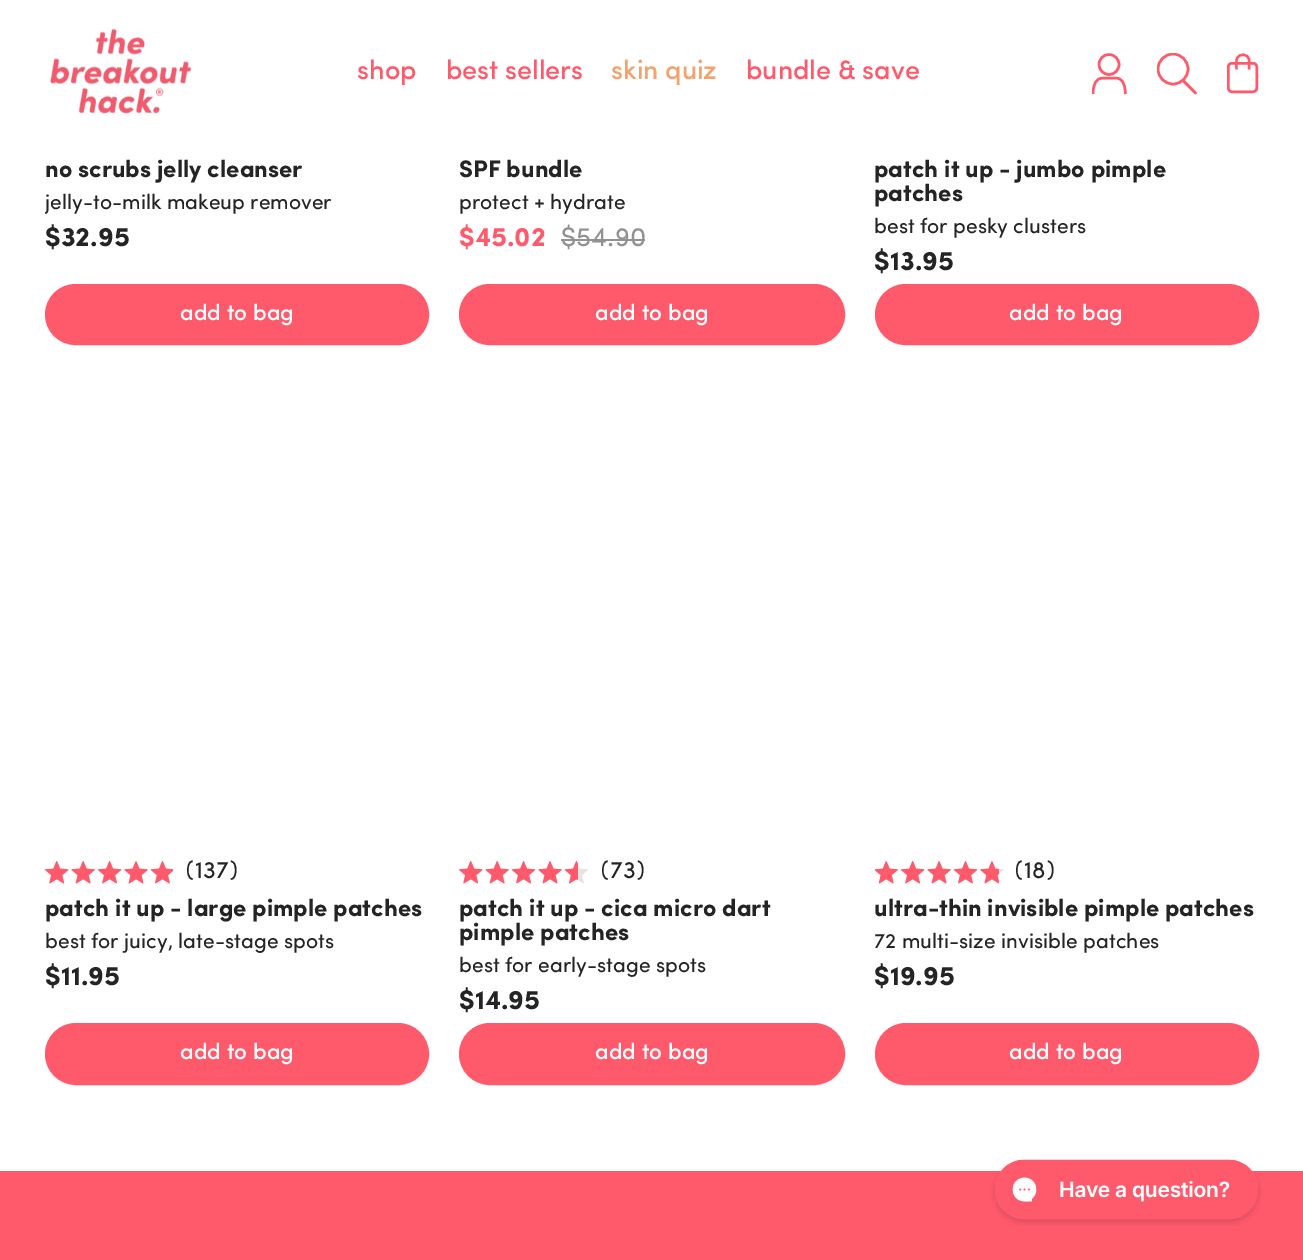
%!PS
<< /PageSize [1303 1260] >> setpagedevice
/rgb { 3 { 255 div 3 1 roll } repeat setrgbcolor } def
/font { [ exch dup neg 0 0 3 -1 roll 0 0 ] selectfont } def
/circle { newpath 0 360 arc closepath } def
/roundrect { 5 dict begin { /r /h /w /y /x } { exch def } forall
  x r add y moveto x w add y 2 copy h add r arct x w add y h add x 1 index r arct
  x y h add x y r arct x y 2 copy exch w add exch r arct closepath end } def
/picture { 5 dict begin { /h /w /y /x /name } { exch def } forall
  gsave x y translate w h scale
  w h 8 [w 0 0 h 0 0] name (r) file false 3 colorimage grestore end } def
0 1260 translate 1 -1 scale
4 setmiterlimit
255 255 255 rgb
0 0 1303 1260 rectfill
(img/1.rgb) 50 29 142 85 picture
255 90 108 rgb
2.5 setlinewidth
1109 64.5 10 circle stroke
gsave
1092 53 35 43 rectclip
1093 94 moveto 1093 83.5 1096.5 78 1103 78 curveto 1115.5 78 lineto 1121.5 78 1125 82 1125.5 94 curveto stroke
grestore
gsave
1157 53 40 42 rectclip
1173 69 15 circle stroke
grestore
1 setlinecap
1183 80.5 moveto 1195.5 93 lineto stroke
0 setlinecap
1228.25 63.25 28.5 28.5 3.75 roundrect stroke
2.4 setlinewidth
1236.5 69.5 moveto 1236.5 66.5 1236 61 1237 58.5 curveto 1239 53 1248 53.5 1249 59.5 curveto 1249 69.5 lineto stroke
46 285 382 59 29.5 roundrect gsave fill grestore
2 setlinewidth
stroke
146 146 146 rgb
561 239 84 2 rectfill
255 90 108 rgb
460 285 384 59 29.5 roundrect gsave fill grestore
stroke
876 285 382 59 29.5 roundrect gsave fill grestore
stroke
(img/2.rgb) 45 861 129 23 picture
(img/3.rgb) 45 861 128 23 picture
46 1024 382 60 30 roundrect gsave fill grestore
stroke
(img/2.rgb) 459 861 129 23 picture
(img/4.rgb) 459 861 119 23 picture
460 1024 384 60 30 roundrect gsave fill grestore
stroke
(img/5.rgb) 874 861 130 23 picture
(img/6.rgb) 875 861 124 23 picture
876 1024 382 60 30 roundrect gsave fill grestore
stroke
255 90 107 rgb
0 1171 1303 25 rectfill
255 90 108 rgb
0 1196 1303 64 rectfill
(img/7.rgb) 991 1159 271 67 picture
/Sofia-Medium 27 font
357 79 moveto (shop) show
446 79 moveto (best sellers) show
243 163 112 rgb
611 79 moveto (skin quiz) show
255 90 108 rgb
746 79 moveto (bundle & save) show
/Sofia-Bold 24 font
36 36 36 rgb
45 177 moveto (no scrubs jelly cleanser) show
gsave
45 191 384 27 rectclip
/Sofia-Regular 21 font
45 209 moveto (jelly-to-milk makeup remover) show
grestore
/Sofia-Bold 27 font
45 246 moveto ($32.95) show
/Sofia-Medium 22.5 font
255 255 255 rgb
180 320 moveto (add to bag) show
/Sofia-Bold 24 font
36 36 36 rgb
459 177 moveto (SPF bundle) show
/Sofia-Regular 21 font
459 209 moveto (protect + hydrate) show
/Sofia-Bold 27 font
255 90 108 rgb
459 246 moveto ($45.02) show
/Sofia-Regular 27 font
146 146 146 rgb
561 246 moveto ($54.90) show
/Sofia-Medium 22.5 font
255 255 255 rgb
595 320 moveto (add to bag) show
/Sofia-Bold 24 font
36 36 36 rgb
874 177 moveto (patch it up - jumbo pimple) show
874 201 moveto (patches) show
/Sofia-Regular 21 font
874 233 moveto (best for pesky clusters) show
/Sofia-Bold 27 font
874 270 moveto ($13.95) show
/Sofia-Medium 22.5 font
255 255 255 rgb
1009 320 moveto (add to bag) show
/Sofia-Regular 21 font
36 36 36 rgb
186 875 moveto (\() show
/Sofia-Regular 24 font
195 878 moveto (137) show
/Sofia-Regular 21 font
230 875 moveto (\)) show
/Sofia-Bold 24 font
45 916 moveto (patch it up - large pimple patches) show
/Sofia-Regular 21 font
45 948 moveto (best for juicy, late-stage spots) show
/Sofia-Bold 27 font
45 985 moveto ($11.95) show
/Sofia-Medium 22.5 font
255 255 255 rgb
180 1059 moveto (add to bag) show
/Sofia-Regular 21 font
36 36 36 rgb
601 875 moveto (\() show
/Sofia-Regular 24 font
610 878 moveto (73) show
/Sofia-Regular 21 font
637 875 moveto (\)) show
/Sofia-Bold 24 font
459 916 moveto (patch it up - cica micro dart) show
459 940 moveto (pimple patches) show
/Sofia-Regular 21 font
459 972 moveto (best for early-stage spots) show
/Sofia-Bold 27 font
459 1009 moveto ($14.95) show
/Sofia-Medium 22.5 font
255 255 255 rgb
595 1059 moveto (add to bag) show
/Sofia-Regular 21 font
36 36 36 rgb
1015 875 moveto (\() show
/Sofia-Regular 24 font
1024 878 moveto (18) show
/Sofia-Regular 21 font
1047 875 moveto (\)) show
/Sofia-Bold 24 font
874 916 moveto (ultra-thin invisible pimple patches) show
/Sofia-Regular 21 font
874 948 moveto (72 multi-size invisible patches) show
/Sofia-Bold 27 font
874 985 moveto ($19.95) show
/Sofia-Medium 22.5 font
255 255 255 rgb
1009 1059 moveto (add to bag) show
showpage
